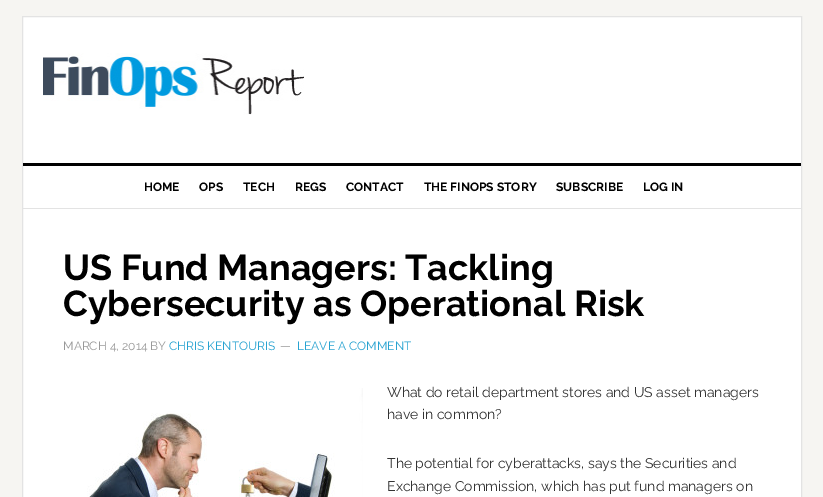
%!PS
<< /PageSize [823 497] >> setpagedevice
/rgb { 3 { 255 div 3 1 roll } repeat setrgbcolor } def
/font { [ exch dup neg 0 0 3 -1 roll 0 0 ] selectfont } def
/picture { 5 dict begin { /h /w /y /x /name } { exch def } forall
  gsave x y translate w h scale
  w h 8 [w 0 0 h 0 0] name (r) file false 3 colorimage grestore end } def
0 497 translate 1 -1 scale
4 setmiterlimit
246 245 242 rgb
0 0 823 497 rectfill
255 255 255 rgb
22.5 16.5 moveto 801.5 16.5 lineto 801.5 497.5 lineto 22.5 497.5 lineto closepath gsave fill grestore
227 227 227 rgb
stroke
(img/1.rgb) 43 53 261 62 picture
0 0 0 rgb
23 163 778 3 rectfill
227 227 227 rgb
23 208 778 1 rectfill
(img/2.rgb) 87 388 276 109 picture
/Raleway-Thin 12 font
0 0 0 rgb
[
  [(HOME) 144 191]
  [(OPS) 199 191]
  [(TECH) 243 191]
  [(REGS) 295 191]
  [(CONTACT) 346 191]
  [(THE FINOPS STORY) 424 191]
  [(SUBSCRIBE) 556 191]
  [(LOG IN) 643 191]
] { aload pop moveto show } forall
/Raleway-Thin 36 font
63 280 moveto (US Fund Managers: Tackling) show
63 316 moveto (Cybersecurity as Operational Risk) show
/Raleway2-Thin 12 font
153 153 153 rgb
63 350 moveto (MARCH 4, 2014 BY) show
39 163 209 rgb
169 350 moveto (CHRIS KENTOURIS) show
153 153 153 rgb
280 350 moveto (—) show
39 163 209 rgb
297 350 moveto (LEAVE A COMMENT) show
/Raleway2-Thin 14 font
51 51 51 rgb
[
  [(What do retail department stores and US asset managers) 387 397]
  [(have in common?) 387 419]
  [(The potential for cyberattacks, says the Securities and) 387 468]
  [(Exchange Commission, which has put fund managers on) 387 491]
] { aload pop moveto show } forall
showpage
